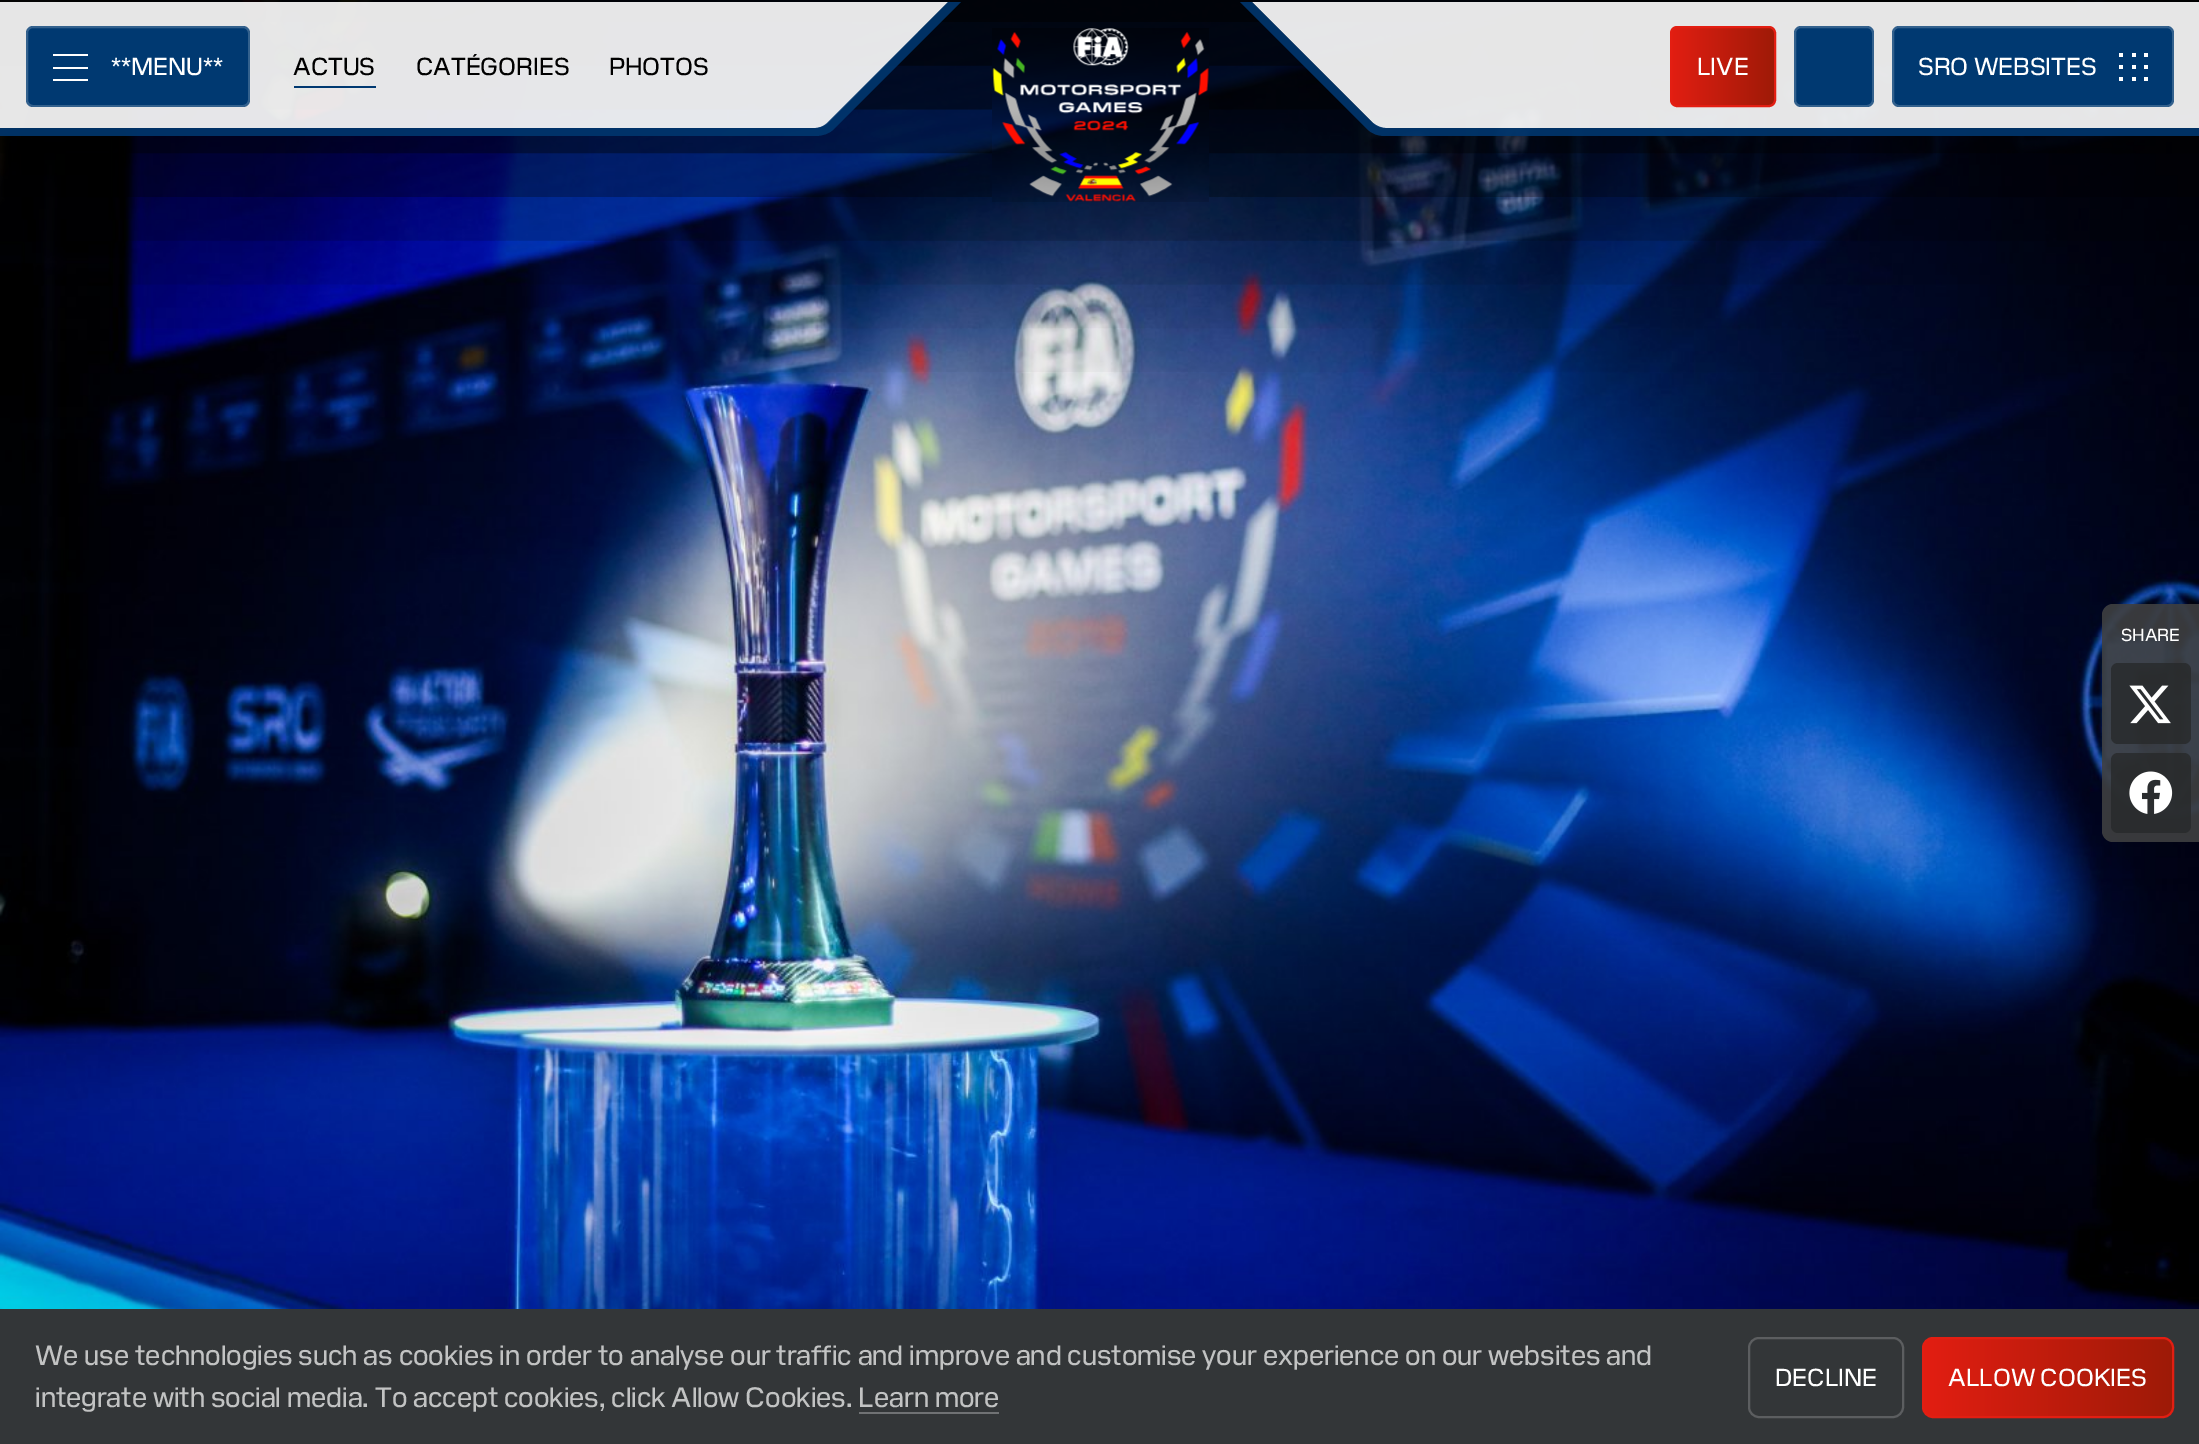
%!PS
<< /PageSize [2199 1444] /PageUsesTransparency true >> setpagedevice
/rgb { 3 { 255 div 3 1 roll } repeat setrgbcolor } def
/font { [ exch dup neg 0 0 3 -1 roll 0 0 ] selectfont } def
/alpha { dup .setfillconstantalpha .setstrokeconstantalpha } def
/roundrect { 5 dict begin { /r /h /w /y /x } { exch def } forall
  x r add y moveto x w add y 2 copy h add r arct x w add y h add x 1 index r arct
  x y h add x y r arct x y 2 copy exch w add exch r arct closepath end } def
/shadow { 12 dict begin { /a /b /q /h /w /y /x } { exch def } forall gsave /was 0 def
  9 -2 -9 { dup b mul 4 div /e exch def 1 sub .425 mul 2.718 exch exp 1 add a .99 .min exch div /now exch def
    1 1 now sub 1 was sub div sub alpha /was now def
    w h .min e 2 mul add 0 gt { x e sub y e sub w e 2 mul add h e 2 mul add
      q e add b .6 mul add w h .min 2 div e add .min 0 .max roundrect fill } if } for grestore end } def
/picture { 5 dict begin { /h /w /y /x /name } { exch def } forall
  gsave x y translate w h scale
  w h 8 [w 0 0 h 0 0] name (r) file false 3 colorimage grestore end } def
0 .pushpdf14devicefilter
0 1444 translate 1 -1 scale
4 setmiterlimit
255 255 255 rgb
0 0 2199 1444 rectfill
(img/2.rgb) 0 0 2199 1309 picture
0 0 0 rgb
-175 -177 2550 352 0 87.5 1 shadow
0.9 alpha
255 255 255 rgb
-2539 2 moveto -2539 128 lineto 815 128 lineto 820 128 824 126 828 123 curveto 948 2 lineto closepath fill
0 54 110 rgb
948 2 moveto 827 123 lineto 824 126 820 128 815 128 curveto -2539 128 lineto -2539 136 lineto 815 136 lineto 822 136 829 134 834 129 curveto 961 2 lineto closepath fill
1 alpha
0 57 113 rgb
26 26 224 81 7 roundrect fill
0.2 alpha
255 255 255 rgb
2 setlinewidth
27 27 222 79 6 roundrect stroke
1 alpha
[
  [53 54 35 2 255 255 255]
  [53 67 35 2 255 255 255]
  [53 79 35 2 255 255 255]
  [294 86 82 2 0 57 113]
] { aload pop rgb rectfill } forall
(img/1.rgb) 992 28 217 174 picture
0.9 alpha
255 255 255 rgb
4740 2 moveto 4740 128 lineto 1385 128 lineto 1381 128 1376 126 1373 123 curveto 1252 2 lineto closepath fill
0 54 110 rgb
1252 2 moveto 1373 123 lineto 1377 126 1381 128 1386 128 curveto 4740 128 lineto 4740 136 lineto 1385 136 lineto 1378 136 1372 134 1367 129 curveto 1240 2 lineto closepath fill
1 alpha
gsave 1671 27 104 79 6 roundrect clip newpath
<< /ShadingType 2 /ColorSpace /DeviceRGB /Coords [1670 67 1776 67] /Extend [true true] /Function << /FunctionType 2 /Domain [0 1] /C0 [0.89 0.118 0.071] /C1 [0.616 0.102 0.027] /N 1 >> >> shfill grestore
227 30 18 rgb
1671 27 104 79 6 roundrect stroke
0 57 113 rgb
1794 26 80 81 7 roundrect fill
0.2 alpha
255 255 255 rgb
1795 27 78 79 6 roundrect stroke
1 alpha
0 57 113 rgb
1892 26 282 81 7 roundrect fill
0.2 alpha
255 255 255 rgb
1893 27 280 79 6 roundrect stroke
1 alpha
[
  [2119 53 4 4 255 255 255]
  [2132 53 4 4 255 255 255]
  [2144 53 4 4 255 255 255]
  [2119 65 4 4 255 255 255]
  [2132 65 4 4 255 255 255]
  [2144 65 4 4 255 255 255]
  [2119 77 4 4 255 255 255]
  [2132 77 4 4 255 255 255]
  [2144 77 4 4 255 255 255]
] { aload pop rgb rectfill } forall
0.9 alpha
62 63 64 rgb
2113 604 moveto 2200 604 lineto 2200 842 lineto 2113 842 lineto 2107 842 2102 837 2102 831 curveto 2102 615 lineto 2102 609 2107 604 2113 604 curveto closepath fill
0.8 alpha
39 41 42 rgb
2111 663 80 81 7 roundrect fill
1 alpha
(img/3.rgb) 2129 685 42 39 picture
0.8 alpha
2111 753 80 80 7 roundrect fill
1 alpha
(img/4.rgb) 2129 771 44 43 picture
51 54 56 rgb
0 1309 2199 135 rectfill
112 114 116 rgb
859 1412 140 2 rectfill
92 94 96 rgb
1749 1338 154 79 10 roundrect stroke
gsave 1923 1338 250 79 10 roundrect clip newpath
<< /ShadingType 2 /ColorSpace /DeviceRGB /Coords [1922 1377 2174 1377] /Extend [true true] /Function << /FunctionType 2 /Domain [0 1] /C0 [0.89 0.118 0.071] /C1 [0.616 0.102 0.027] /N 1 >> >> shfill grestore
227 30 18 rgb
1923 1338 250 79 10 roundrect stroke
/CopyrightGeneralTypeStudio-Medium 24.5 font
255 255 255 rgb
111 75 moveto (**MENU**) show
0 0 0 rgb
[
  [(ACTUS) 293 75]
  [(CATÉGORIES) 416 75]
  [(PHOTOS) 609 75]
] { aload pop moveto show } forall
255 255 255 rgb
1697 75 moveto (LIVE) show
1918 75 moveto (SRO WEBSITES) show
/CopyrightGeneralTypeStudio-Medium 17.5 font
2121 641 moveto (SHARE) show
/CopyrightGeneralTypeStudio-Medium 28 font
194 195 195 rgb
35 1365 moveto (We use technologies such as cookies in order to analyse our traffic and improve and customise your experience on our websites and) show
35 1407 moveto (integrate with social media. To accept cookies, click Allow Cookies. Learn more) show
/CopyrightGeneralTypeStudio-Medium 24.5 font
255 255 255 rgb
1775 1386 moveto (DECLINE) show
1948 1386 moveto (ALLOW COOKIES) show
.poppdf14devicefilter showpage
